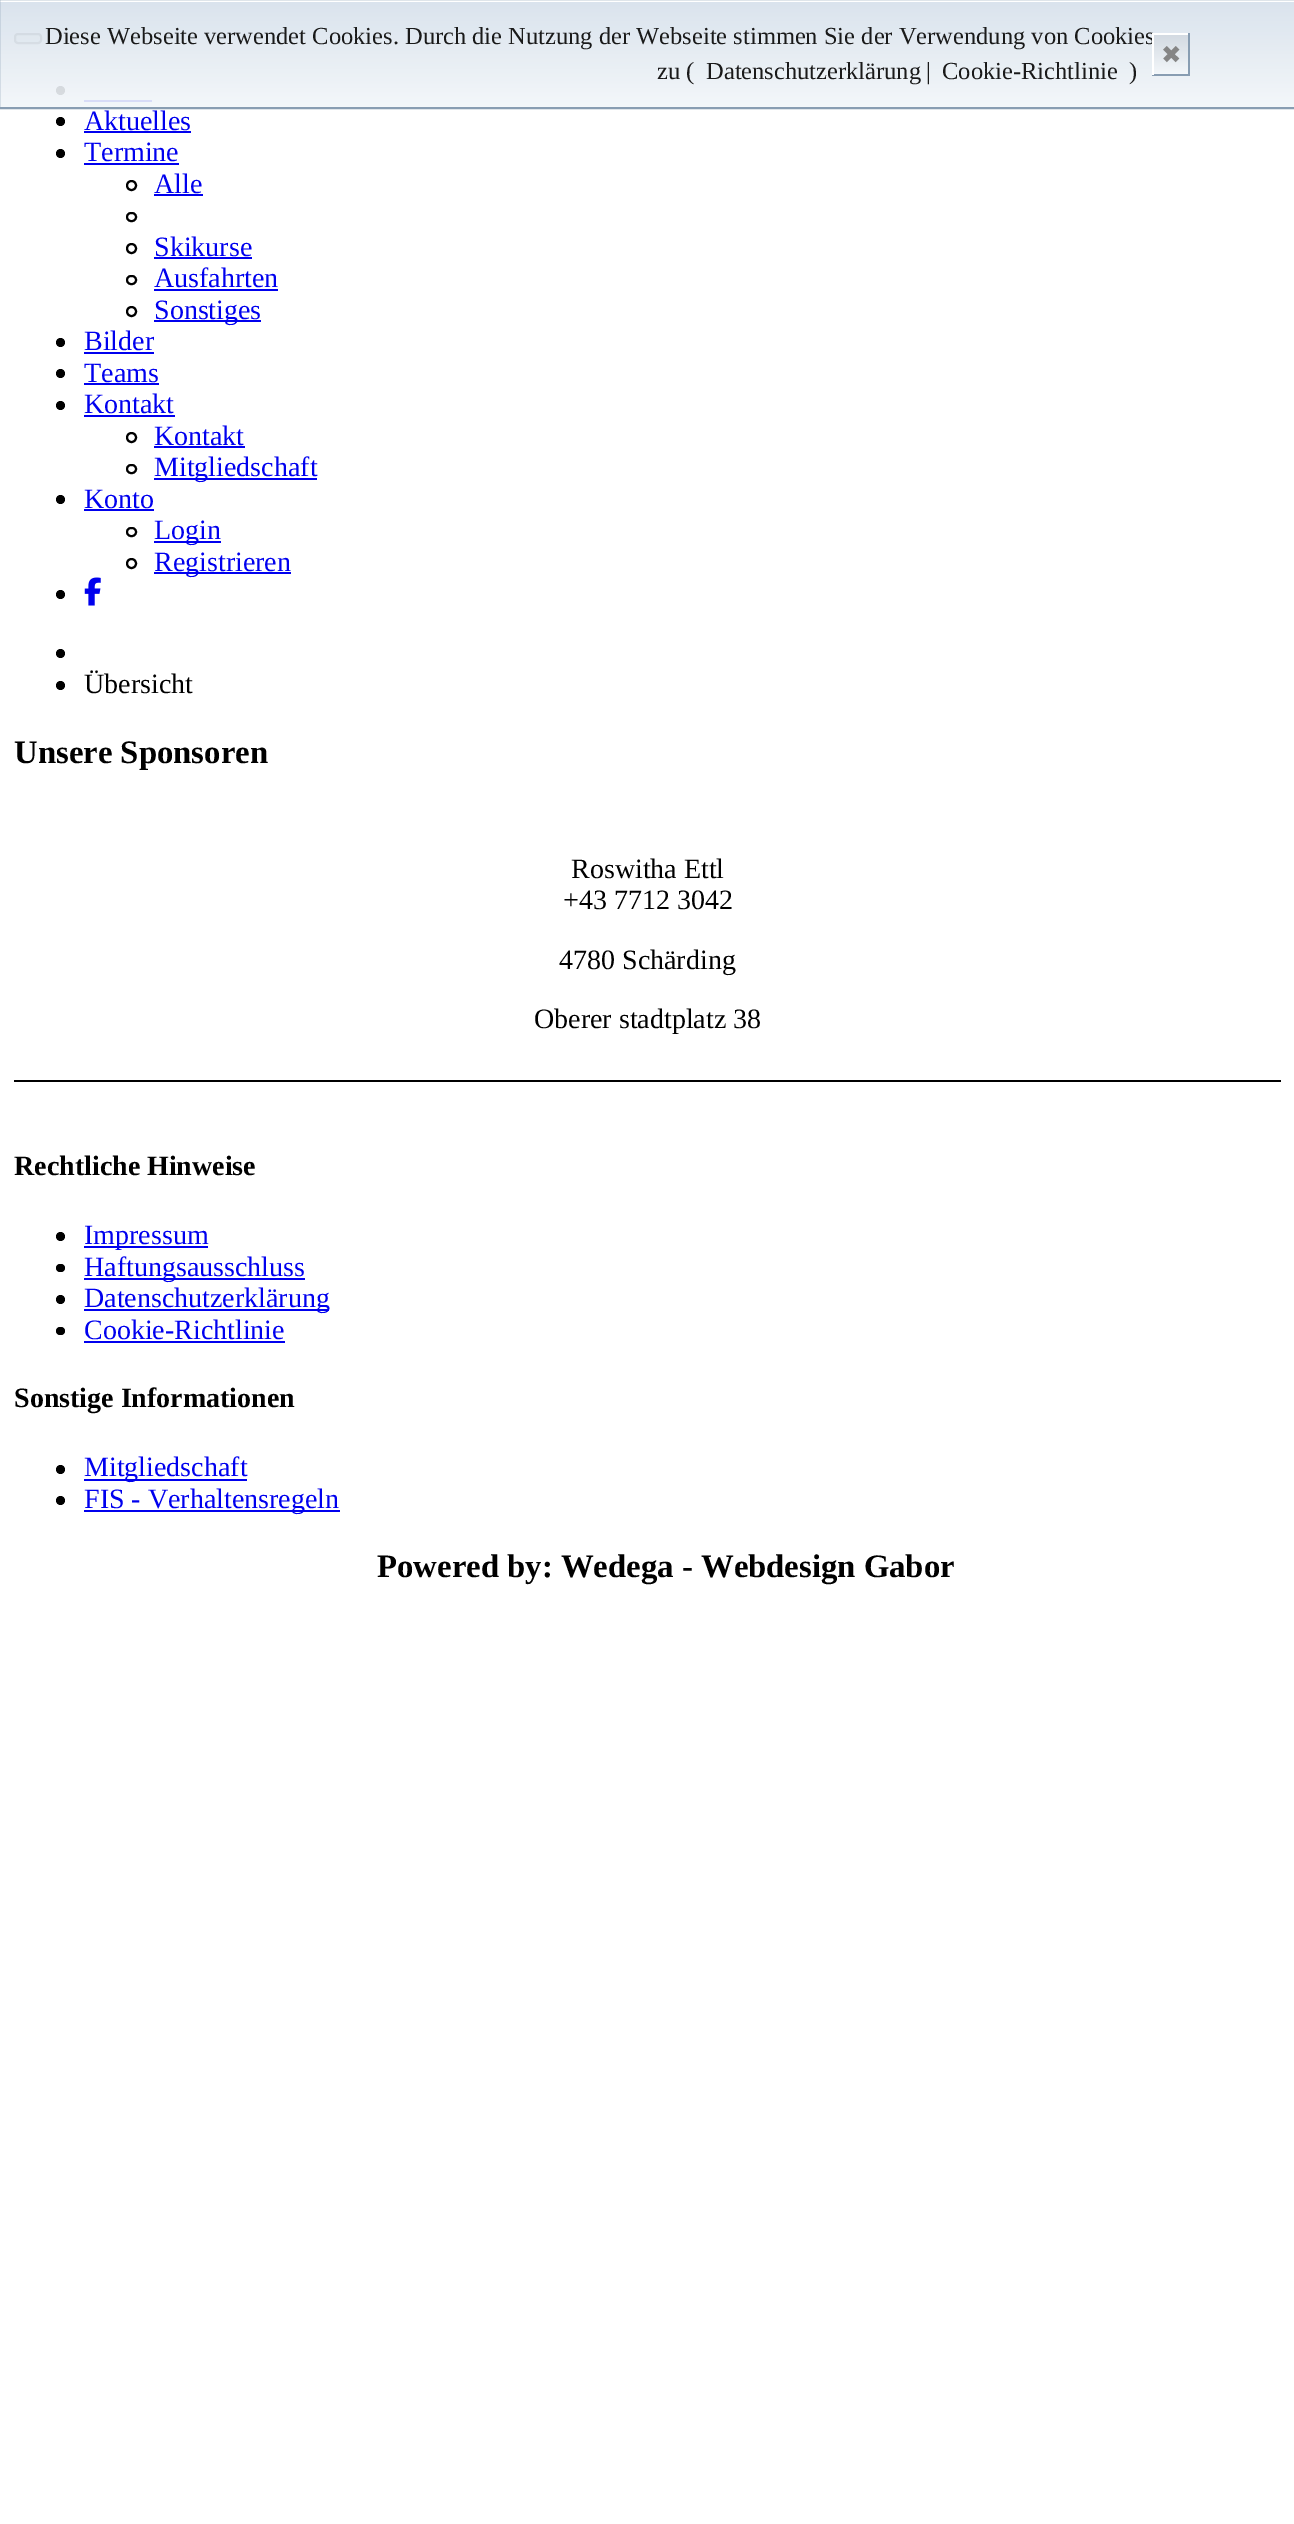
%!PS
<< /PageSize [1294 2524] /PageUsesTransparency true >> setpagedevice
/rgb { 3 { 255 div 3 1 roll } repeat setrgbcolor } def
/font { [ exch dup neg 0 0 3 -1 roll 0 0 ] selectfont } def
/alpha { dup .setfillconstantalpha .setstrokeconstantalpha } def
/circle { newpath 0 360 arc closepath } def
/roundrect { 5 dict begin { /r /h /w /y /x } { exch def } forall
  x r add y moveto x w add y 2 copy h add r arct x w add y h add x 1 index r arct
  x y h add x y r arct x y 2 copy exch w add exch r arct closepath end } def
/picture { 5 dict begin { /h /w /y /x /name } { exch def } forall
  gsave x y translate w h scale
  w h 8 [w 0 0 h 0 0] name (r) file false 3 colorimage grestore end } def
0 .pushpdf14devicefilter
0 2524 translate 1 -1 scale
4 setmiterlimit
255 255 255 rgb
0 0 1294 2524 rectfill
239 239 239 rgb
15 34 26 9 3 roundrect gsave fill grestore
118 118 118 rgb
2 setlinewidth
stroke
0 0 0 rgb
60.5 90.5 4.5 circle fill
0 0 238 rgb
84 100 68 2 rectfill
0.9 alpha
gsave 0 2 moveto 1294 2 lineto 1294 107 lineto 0 107 lineto closepath clip newpath
<< /ShadingType 2 /ColorSpace /DeviceRGB /Coords [648 1.7 648 107] /Extend [true true] /Function << /FunctionType 2 /Domain [0 1] /C0 [0.839 0.878 0.922] /C1 [0.949 0.965 0.976] /N 1 >> >> shfill grestore
1 alpha
136 157 178 rgb
-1 -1 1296 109 rectstroke
0 0 0 rgb
60.5 121.5 4.5 circle fill
0 0 238 rgb
84 131 107 2 rectfill
0 0 0 rgb
60.5 153.5 4.5 circle fill
0 0 238 rgb
84 163 95 2 rectfill
0 0 0 rgb
131.5 185.5 4.5 circle stroke
0 0 238 rgb
154 194 49 2 rectfill
0 0 0 rgb
127 213 9 8 4 roundrect stroke
131.5 248.5 4.5 circle stroke
0 0 238 rgb
154 257 98 2 rectfill
0 0 0 rgb
127 276 9 8 4 roundrect stroke
0 0 238 rgb
154 289 124 2 rectfill
0 0 0 rgb
131.5 311.5 4.5 circle stroke
0 0 238 rgb
154 320 107 2 rectfill
0 0 0 rgb
60.5 342.5 4.5 circle fill
0 0 238 rgb
84 352 70 2 rectfill
0 0 0 rgb
60.5 373.5 4.5 circle fill
0 0 238 rgb
84 383 75 2 rectfill
0 0 0 rgb
60.5 405.5 4.5 circle fill
0 0 238 rgb
84 415 91 2 rectfill
0 0 0 rgb
131.5 437.5 4.5 circle stroke
0 0 238 rgb
154 446 91 2 rectfill
0 0 0 rgb
127 465 9 8 4 roundrect stroke
0 0 238 rgb
154 478 163 2 rectfill
0 0 0 rgb
60.5 499.5 4.5 circle fill
0 0 238 rgb
84 509 70 2 rectfill
0 0 0 rgb
127 528 9 8 4 roundrect stroke
0 0 238 rgb
154 541 67 2 rectfill
0 0 0 rgb
131.5 563.5 4.5 circle stroke
0 0 238 rgb
154 572 137 2 rectfill
0 0 0 rgb
60.5 594.5 4.5 circle fill
(img/1.rgb) 84 577 17 29 picture
60.5 653.5 4.5 circle fill
60.5 685.5 4.5 circle fill
14 1080 1267 2 rectfill
60.5 1236.5 4.5 circle fill
0 0 238 rgb
84 1246 124 2 rectfill
0 0 0 rgb
56 1264 9 8 4 roundrect fill
0 0 238 rgb
84 1278 221 2 rectfill
0 0 0 rgb
60.5 1299.5 4.5 circle fill
0 0 238 rgb
84 1309 245 2 rectfill
0 0 0 rgb
56 1327 9 8 4 roundrect fill
0 0 238 rgb
84 1341 201 2 rectfill
0 0 0 rgb
60.5 1469.5 4.5 circle fill
0 0 238 rgb
84 1479 163 2 rectfill
0 0 0 rgb
60.5 1500.5 4.5 circle fill
0 0 238 rgb
84 1510 256 2 rectfill
/LiberationSerif-Regular 24.5 font
26 26 26 rgb
45 44 moveto (Diese Webseite verwendet Cookies. Durch die Nutzung der Webseite stimmen Sie der Verwendung von Cookies) show
gsave 1154 35 moveto 1188 35 lineto 1188 74 lineto 1154 74 lineto closepath clip newpath
<< /ShadingType 2 /ColorSpace /DeviceRGB /Coords [1153 35 1153 74] /Extend [true true] /Function << /FunctionType 2 /Domain [0 1] /C0 [0.827 0.855 0.886] /C1 [0.953 0.969 0.98] /N 1 >> >> shfill grestore
[
  [1152 33 38 2 255 255 255]
  [1188 33 2 42 136 157 178]
  [1152 74 38 2 136 157 178]
  [1152 33 2 42 255 255 255]
] { aload pop rgb rectfill } forall
/DejaVuSans-Regular 24.5 font
133 133 133 rgb
1161 63 moveto (✖) show
/LiberationSerif-Regular 24.5 font
26 26 26 rgb
[
  [(zu \() 657 79]
  [(Datenschutzerklärung) 706 79]
  [(|) 926 79]
  [(Cookie-Richtlinie) 942 79]
  [(\)) 1129 79]
] { aload pop moveto show } forall
/LiberationSerif-Regular 28 font
0 0 238 rgb
[
  [(Aktuelles) 84 130]
  [(Termine) 84 161]
  [(Alle) 154 193]
  [(Skikurse) 154 256]
  [(Ausfahrten) 154 287]
  [(Sonstiges) 154 319]
  [(Bilder) 84 350]
  [(Teams) 84 382]
  [(Kontakt) 84 413]
  [(Kontakt) 154 445]
  [(Mitgliedschaft) 154 476]
  [(Konto) 84 508]
  [(Login) 154 539]
  [(Registrieren) 154 571]
] { aload pop moveto show } forall
0 0 0 rgb
84 693 moveto (Übersicht) show
/LiberationSerif-Bold 32.75 font
14 763 moveto (Unsere Sponsoren) show
/LiberationSerif-Regular 28 font
[
  [(Roswitha Ettl) 571 878]
  [(+43 7712 3042) 563 909]
  [(4780 Schärding) 559 969]
  [(Oberer stadtplatz 38) 534 1028]
] { aload pop moveto show } forall
/LiberationSerif-Bold 28 font
14 1175 moveto (Rechtliche Hinweise) show
/LiberationSerif-Regular 28 font
0 0 238 rgb
[
  [(Impressum) 84 1244]
  [(Haftungsausschluss) 84 1276]
  [(Datenschutzerklärung) 84 1307]
  [(Cookie-Richtlinie) 84 1339]
] { aload pop moveto show } forall
/LiberationSerif-Bold 28 font
0 0 0 rgb
14 1407 moveto (Sonstige Informationen) show
/LiberationSerif-Regular 28 font
0 0 238 rgb
84 1476 moveto (Mitgliedschaft) show
84 1508 moveto (FIS - Verhaltensregeln) show
/LiberationSerif-Bold 32.75 font
0 0 0 rgb
377 1577 moveto (Powered by: Wedega - Webdesign Gabor) show
.poppdf14devicefilter showpage
